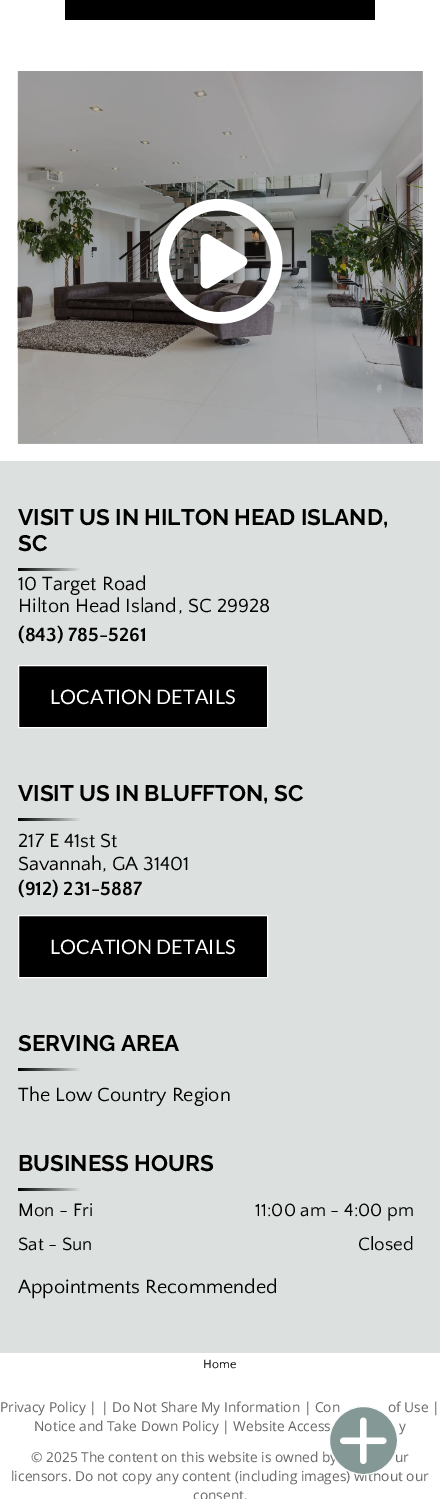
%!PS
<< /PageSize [440 1499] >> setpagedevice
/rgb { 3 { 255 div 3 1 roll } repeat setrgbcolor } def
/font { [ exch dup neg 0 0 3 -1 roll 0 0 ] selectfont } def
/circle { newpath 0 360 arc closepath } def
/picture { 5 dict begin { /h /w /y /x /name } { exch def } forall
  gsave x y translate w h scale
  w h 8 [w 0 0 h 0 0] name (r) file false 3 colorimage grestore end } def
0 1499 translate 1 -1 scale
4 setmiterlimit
255 255 255 rgb
0 0 440 1499 rectfill
179 179 179 rgb
18 71 405 373 rectfill
0 0 0 rgb
65 0 310 20 rectfill
(img/1.rgb) 17 71 406 373 picture
(img/2.rgb) 158 199 125 125 picture
220 224 223 rgb
0 461 440 892 rectfill
gsave 18 568 moveto 81 568 lineto 81 571 lineto 18 571 lineto closepath clip newpath
<< /ShadingType 2 /ColorSpace /DeviceRGB /Coords [18 569 81 569] /Extend [true true] /Function << /FunctionType 2 /Domain [0 1] /C0 [0 0 0] /C1 [0.863 0.878 0.875] /N 1 >> >> shfill grestore
0 0 0 rgb
18.5 665.5 moveto 267.5 665.5 lineto 267.5 727.5 lineto 18.5 727.5 lineto closepath gsave fill grestore
255 255 255 rgb
stroke
gsave 18 818 moveto 81 818 lineto 81 821 lineto 18 821 lineto closepath clip newpath
<< /ShadingType 2 /ColorSpace /DeviceRGB /Coords [18 819 81 819] /Extend [true true] /Function << /FunctionType 2 /Domain [0 1] /C0 [0 0 0] /C1 [0.863 0.878 0.875] /N 1 >> >> shfill grestore
0 0 0 rgb
18.5 915.5 moveto 267.5 915.5 lineto 267.5 977.5 lineto 18.5 977.5 lineto closepath gsave fill grestore
255 255 255 rgb
stroke
gsave 18 1068 moveto 81 1068 lineto 81 1071 lineto 18 1071 lineto closepath clip newpath
<< /ShadingType 2 /ColorSpace /DeviceRGB /Coords [18 1069 81 1069] /Extend [true true] /Function << /FunctionType 2 /Domain [0 1] /C0 [0 0 0] /C1 [0.863 0.878 0.875] /N 1 >> >> shfill grestore
gsave 18 1188 moveto 81 1188 lineto 81 1191 lineto 18 1191 lineto closepath clip newpath
<< /ShadingType 2 /ColorSpace /DeviceRGB /Coords [18 1189 81 1189] /Extend [true true] /Function << /FunctionType 2 /Domain [0 1] /C0 [0 0 0] /C1 [0.863 0.878 0.875] /N 1 >> >> shfill grestore
/Raleway-Bold 22.5 font
0 0 0 rgb
18 525 moveto (VISIT US IN HILTON HEAD ISLAND,) show
18 551 moveto (SC) show
/QuattrocentoSans-Regular 20 font
[
  [(10 Target Road) 18 590]
  [(Hilton Head Island) 18 612]
  [(, SC 29928) 178 612]
] { aload pop moveto show } forall
/QuattrocentoSans-Bold 20 font
18 641 moveto (\(843\) 785-5261) show
/Lato-Regular 20 font
255 255 255 rgb
50 704 moveto (LOCATION DETAILS) show
/Raleway-Bold 22.5 font
0 0 0 rgb
18 801 moveto (VISIT US IN BLUFFTON, SC) show
/QuattrocentoSans-Regular 20 font
18 847 moveto (217 E 41st St) show
18 870 moveto (Savannah, GA 31401) show
/QuattrocentoSans-Bold 20 font
18 895 moveto (\(912\) 231-5887) show
/Lato-Regular 20 font
255 255 255 rgb
50 954 moveto (LOCATION DETAILS) show
/Raleway-Bold 22.5 font
0 0 0 rgb
18 1051 moveto (SERVING AREA) show
/QuattrocentoSans-Regular 20 font
18 1101 moveto (The Low Country Region) show
/Raleway-Bold 22.5 font
18 1171 moveto (BUSINESS HOURS) show
/QuattrocentoSans-Regular 18.75 font
[
  [(Mon - Fri) 18 1216]
  [(11:00 am - 4:00 pm) 255 1216]
  [(Sat - Sun) 18 1250]
  [(Closed) 358 1250]
] { aload pop moveto show } forall
/QuattrocentoSans-Regular 20 font
18 1293 moveto (Appointments Recommended) show
/QuattrocentoSans-Regular 12.5 font
203 1368 moveto (Home) show
/OpenSans-Regular 13.75 font
102 102 102 rgb
[
  [(Privacy Policy | | Do Not Share My Information | Con) 0 1412]
  [(of Use |) 388 1412]
  [(Notice and Take Down Policy | Website Access) 34 1431]
  [(y) 399 1431]
  [(© 2025 The content on this website is owned by) 31 1462]
  [(ur) 395 1462]
  [(licensors. Do not copy any content \(including images\) without our) 11 1481]
  [(consent.) 193 1500]
] { aload pop moveto show } forall
132 152 149 rgb
363.5 1440.5 34 circle gsave fill grestore
255 255 255 rgb
stroke
(img/3.rgb) 340 1417 47 47 picture
showpage
